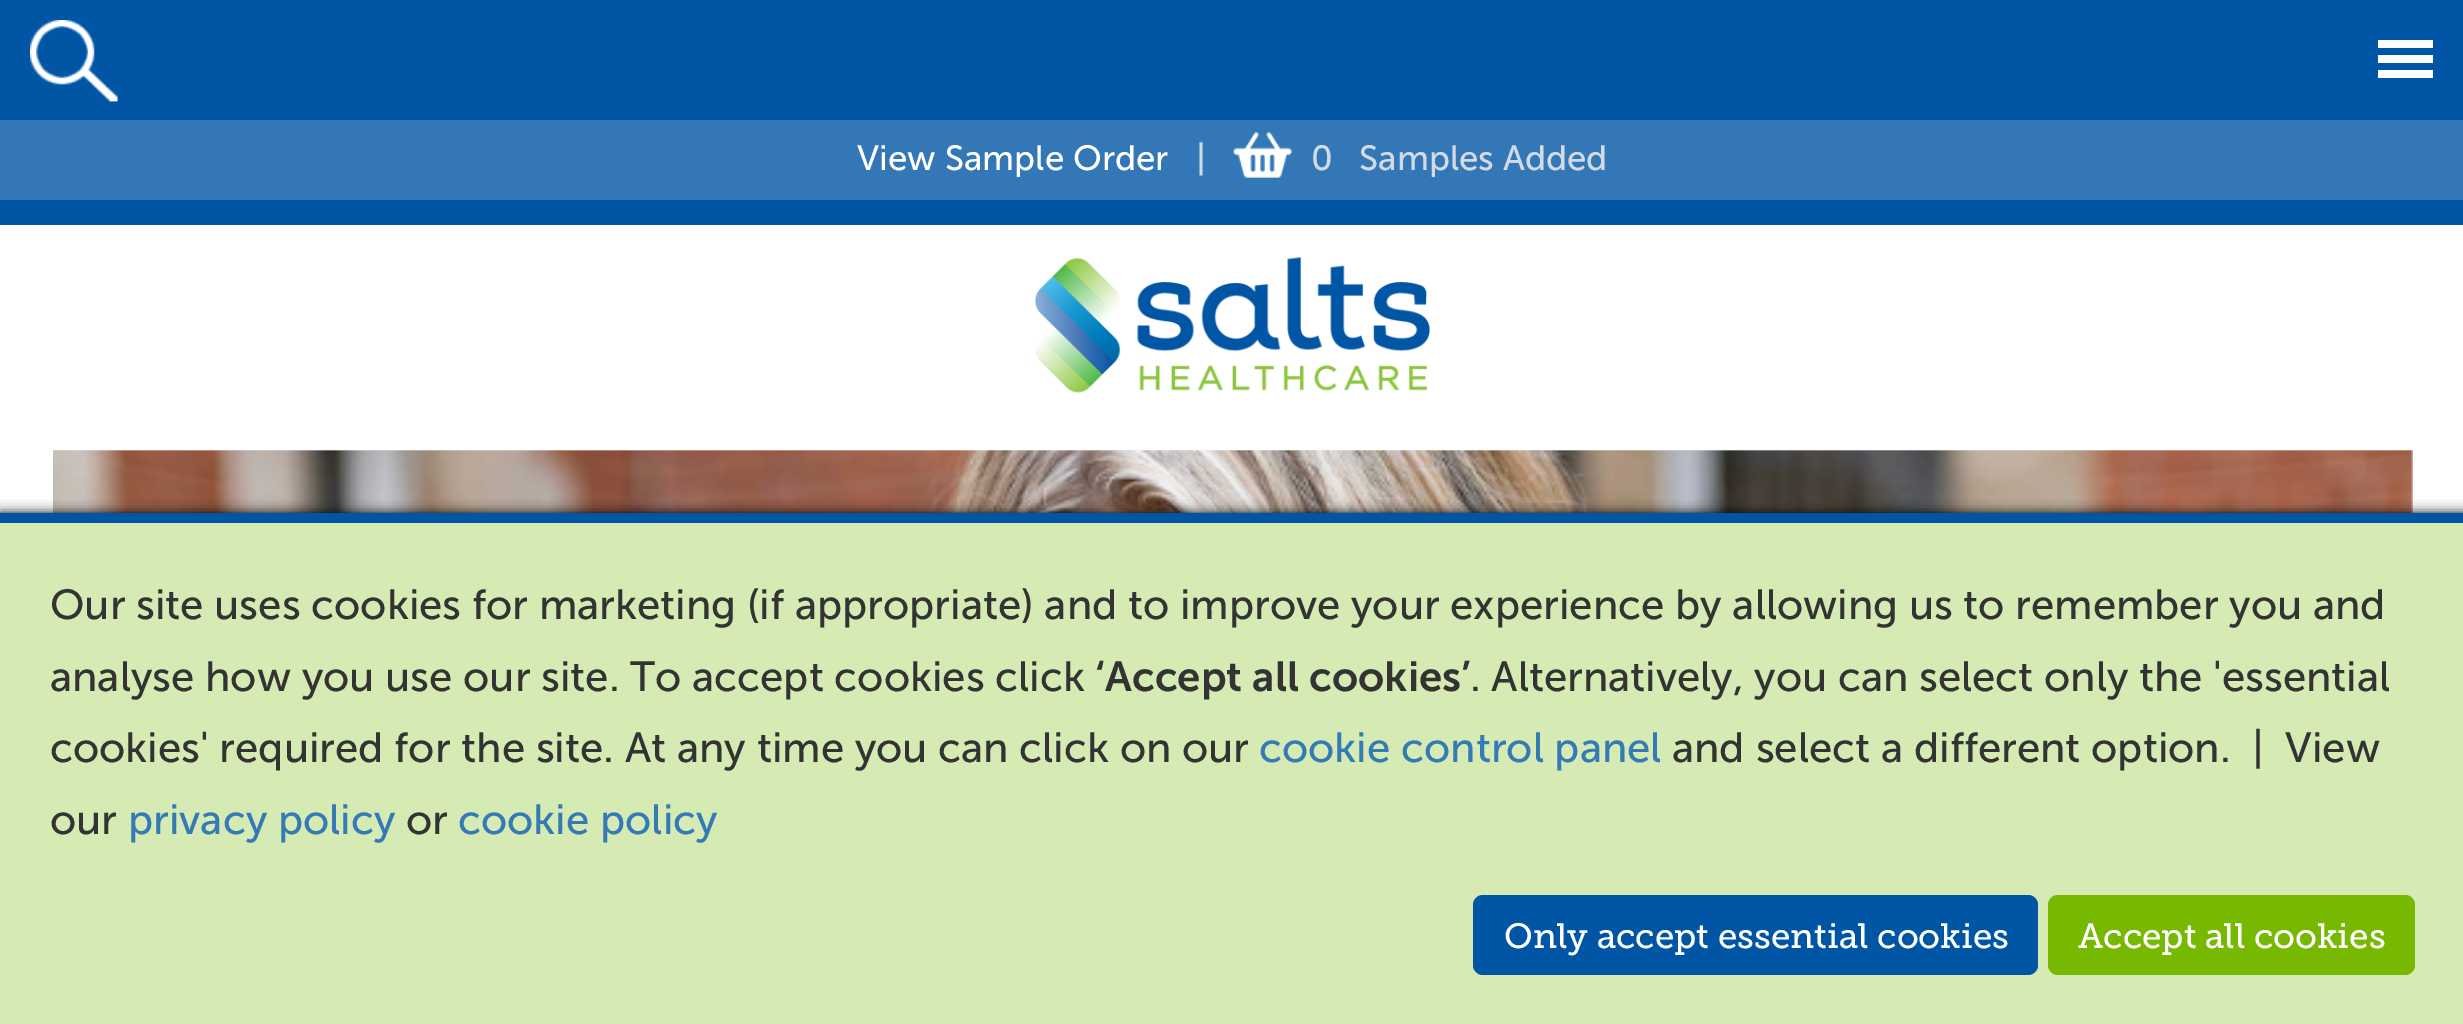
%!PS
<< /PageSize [2463 1024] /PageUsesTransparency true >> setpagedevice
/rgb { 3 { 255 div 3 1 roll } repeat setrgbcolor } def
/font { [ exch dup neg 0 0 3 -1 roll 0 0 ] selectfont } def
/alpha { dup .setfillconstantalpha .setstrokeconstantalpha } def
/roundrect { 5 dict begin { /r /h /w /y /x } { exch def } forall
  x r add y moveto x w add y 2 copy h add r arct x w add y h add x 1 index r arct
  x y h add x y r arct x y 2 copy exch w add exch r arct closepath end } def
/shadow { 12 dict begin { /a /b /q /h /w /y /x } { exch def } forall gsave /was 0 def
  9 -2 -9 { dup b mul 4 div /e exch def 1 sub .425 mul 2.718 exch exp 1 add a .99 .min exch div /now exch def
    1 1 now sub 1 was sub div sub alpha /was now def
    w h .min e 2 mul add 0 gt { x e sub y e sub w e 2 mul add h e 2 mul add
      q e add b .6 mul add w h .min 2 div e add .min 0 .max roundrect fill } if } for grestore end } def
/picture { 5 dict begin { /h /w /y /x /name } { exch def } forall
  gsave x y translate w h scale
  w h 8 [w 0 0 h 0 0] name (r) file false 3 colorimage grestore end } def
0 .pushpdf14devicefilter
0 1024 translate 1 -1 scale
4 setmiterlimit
255 255 255 rgb
0 0 2463 1024 rectfill
[
  [0 0 2463 225 0 85 165]
  [2378 40 55 8 255 255 255]
  [2378 55 55 8 255 255 255]
  [2378 70 55 8 255 255 255]
] { aload pop rgb rectfill } forall
(img/1.rgb) 30 20 88 82 picture
51 119 183 rgb
0 120 2463 80 rectfill
(img/2.rgb) 1233 132 60 46 picture
(img/3.rgb) 1035 257 395 136 picture
230 230 230 rgb
53 450 2360 63 rectfill
(img/4.rgb) 53 450 2360 63 picture
0 0 0 rgb
0 513 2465 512 0 6 1 shadow
214 234 179 rgb
0 523 2463 501 rectfill
0 85 165 rgb
0 513 2463 10 rectfill
1473 895 565 80 10 roundrect fill
119 184 0 rgb
2048 895 367 80 10 roundrect fill
/MuseoSans-Regular 35 font
255 255 255 rgb
857 170 moveto (View Sample Order) show
210 219 227 rgb
[
  [(|) 1196 170]
  [(0) 1311 170]
  [(Samples Added) 1359 170]
] { aload pop moveto show } forall
/MuseoSans-Regular 42 font
51 51 51 rgb
50 619 moveto -0.1 0 32 (Our site uses cookies for marketing \(if appropriate\) and to improve your experience by allowing us to remember you and) widthshow
50 691 moveto (analyse how you use our site. To accept cookies click) show
/MuseoSans-SemiBold 42 font
1095 691 moveto (‘Accept all cookies’) show
/MuseoSans-Regular 42 font
1470 691 moveto -0.1 0 32 (. Alternatively, you can select only the 'essential) widthshow
50 762 moveto (cookies' required for the site. At any time you can click on our) show
51 122 183 rgb
1259 762 moveto (cookie control panel) show
51 51 51 rgb
1672 762 moveto (and select a different option.  |  View) show
50 834 moveto (our) show
51 122 183 rgb
128 834 moveto (privacy policy) show
51 51 51 rgb
406 834 moveto (or) show
51 122 183 rgb
458 834 moveto (cookie policy) show
/MuseoSlab-Regular 35 font
255 255 255 rgb
1504 948 moveto (Only accept essential cookies) show
2078 948 moveto (Accept all cookies) show
.poppdf14devicefilter showpage
